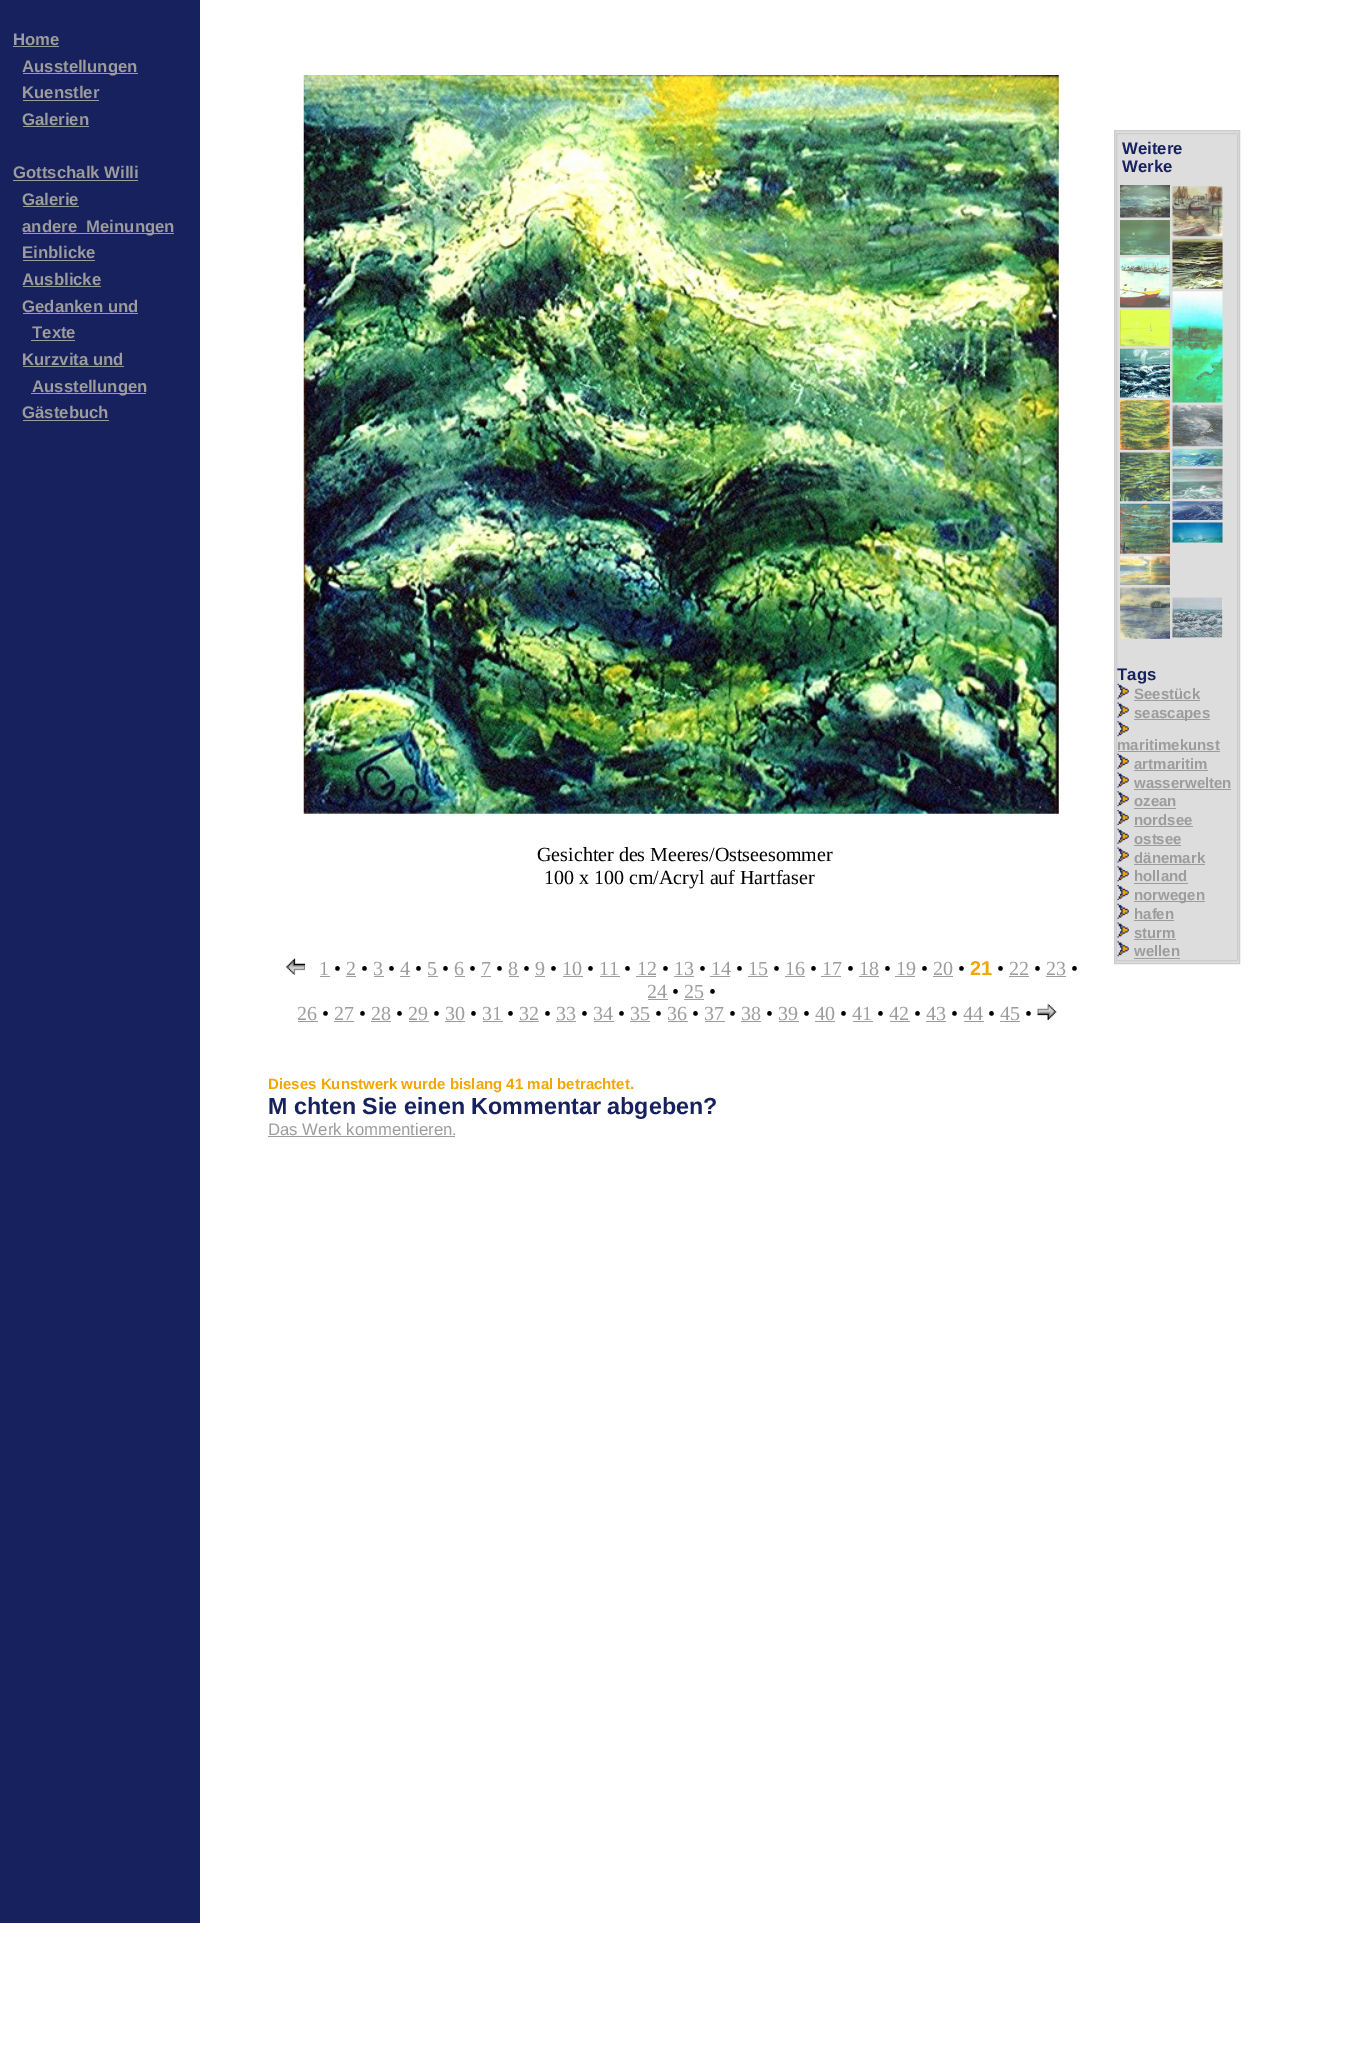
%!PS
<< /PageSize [1346 2049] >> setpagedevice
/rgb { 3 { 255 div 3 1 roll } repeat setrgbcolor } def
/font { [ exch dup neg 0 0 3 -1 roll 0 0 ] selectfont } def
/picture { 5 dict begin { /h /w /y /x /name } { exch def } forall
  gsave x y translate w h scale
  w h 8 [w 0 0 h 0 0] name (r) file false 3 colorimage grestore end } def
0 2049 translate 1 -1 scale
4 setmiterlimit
255 255 255 rgb
0 0 1346 2049 rectfill
[
  [0 0 200 1923 23 33 94]
  [13 46 46 1 156 156 156]
  [23 73 115 1 156 156 156]
  [23 100 76 1 156 156 156]
  [23 126 66 1 156 156 156]
  [13 180 125 1 156 156 156]
  [23 206 56 1 156 156 156]
  [23 233 151 1 156 156 156]
  [23 260 72 1 156 156 156]
  [23 286 78 1 156 156 156]
  [23 313 115 1 156 156 156]
  [31 340 44 1 156 156 156]
  [23 366 101 1 156 156 156]
  [31 393 115 1 156 156 156]
  [23 420 86 1 156 156 156]
] { aload pop rgb rectfill } forall
(img/1.rgb) 303 75 756 739 picture
(img/2.rgb) 286 958 19 17 picture
[
  [320 976 10 1 156 156 156]
  [346 976 10 1 156 156 156]
  [374 976 10 1 156 156 156]
  [400 976 10 1 156 156 156]
  [428 976 10 1 156 156 156]
  [455 976 10 1 156 156 156]
  [481 976 10 1 156 156 156]
  [509 976 10 1 156 156 156]
  [535 976 10 1 156 156 156]
  [563 976 20 1 156 156 156]
  [600 976 20 1 156 156 156]
  [636 976 20 1 156 156 156]
  [674 976 20 1 156 156 156]
  [710 976 20 1 156 156 156]
  [748 976 20 1 156 156 156]
  [785 976 20 1 156 156 156]
  [821 976 20 1 156 156 156]
  [859 976 20 1 156 156 156]
  [895 976 20 1 156 156 156]
  [933 976 20 1 156 156 156]
  [1009 976 20 1 156 156 156]
  [1046 976 20 1 156 156 156]
  [648 999 20 1 156 156 156]
  [684 999 20 1 156 156 156]
  [298 1021 20 1 156 156 156]
  [334 1021 20 1 156 156 156]
  [371 1021 20 1 156 156 156]
  [409 1021 20 1 156 156 156]
  [445 1021 20 1 156 156 156]
  [483 1021 20 1 156 156 156]
  [519 1021 20 1 156 156 156]
  [556 1021 20 1 156 156 156]
  [594 1021 20 1 156 156 156]
  [630 1021 20 1 156 156 156]
  [668 1021 20 1 156 156 156]
  [705 1021 20 1 156 156 156]
  [741 1021 20 1 156 156 156]
  [779 1021 20 1 156 156 156]
  [815 1021 20 1 156 156 156]
  [853 1021 20 1 156 156 156]
  [890 1021 20 1 156 156 156]
  [926 1021 20 1 156 156 156]
  [964 1021 20 1 156 156 156]
  [1000 1021 20 1 156 156 156]
] { aload pop rgb rectfill } forall
(img/3.rgb) 1037 1003 20 17 picture
221 221 221 rgb
1114.5 130.5 moveto 1239.5 130.5 lineto 1239.5 963.5 lineto 1114.5 963.5 lineto closepath gsave fill grestore
204 204 204 rgb
stroke
1116.5 133.5 121 827 rectstroke
(img/4.rgb) 1120 185 50 33 picture
(img/5.rgb) 1120 220 50 35 picture
(img/6.rgb) 1120 257 50 51 picture
(img/7.rgb) 1120 310 50 37 picture
(img/8.rgb) 1120 348 50 50 picture
(img/9.rgb) 1120 400 50 50 picture
(img/10.rgb) 1120 452 50 50 picture
(img/11.rgb) 1120 503 50 51 picture
(img/12.rgb) 1120 556 50 29 picture
(img/13.rgb) 1120 587 50 52 picture
(img/14.rgb) 1172 186 51 51 picture
(img/15.rgb) 1172 238 51 51 picture
(img/16.rgb) 1172 291 51 112 picture
(img/17.rgb) 1172 405 51 42 picture
(img/18.rgb) 1172 448 51 19 picture
(img/19.rgb) 1172 468 51 31 picture
(img/20.rgb) 1172 501 51 19 picture
(img/21.rgb) 1172 522 51 21 picture
(img/22.rgb) 1172 597 51 41 picture
156 156 156 rgb
1134 700 66 1 rectfill
(img/24.rgb) 1117 702 12 16 picture
1134 719 76 1 rectfill
(img/25.rgb) 1117 721 12 16 picture
1118 751 102 1 rectfill
(img/23.rgb) 1117 753 12 16 picture
1134 770 74 1 rectfill
(img/26.rgb) 1117 772 12 16 picture
1134 789 97 1 rectfill
(img/25.rgb) 1117 791 12 16 picture
1134 808 42 1 rectfill
(img/27.rgb) 1117 810 12 15 picture
1134 826 59 1 rectfill
(img/23.rgb) 1117 828 12 16 picture
1134 845 47 1 rectfill
(img/24.rgb) 1117 847 12 16 picture
1134 864 71 1 rectfill
(img/25.rgb) 1117 866 12 16 picture
1134 883 54 1 rectfill
(img/27.rgb) 1117 885 12 15 picture
1134 901 71 1 rectfill
(img/23.rgb) 1117 903 12 16 picture
1134 920 40 1 rectfill
(img/24.rgb) 1117 922 12 16 picture
1134 939 42 1 rectfill
(img/25.rgb) 1117 941 12 16 picture
1134 958 46 1 rectfill
268 1136 187 1 rectfill
/LiberationSans-Bold 16.75 font
[
  [(Home) 13 45]
  [(Ausstellungen) 22 72]
  [(Kuenstler) 22 98]
  [(Galerien) 22 125]
  [(Gottschalk Willi) 13 178]
  [(Galerie) 22 205]
  [(andere_Meinungen) 22 232]
  [(Einblicke) 22 258]
  [(Ausblicke) 22 285]
  [(Gedanken und) 22 312]
  [(Texte) 32 338]
  [(Kurzvita und) 22 365]
  [(Ausstellungen) 32 392]
  [(Gästebuch) 22 418]
] { aload pop moveto show } forall
/LiberationSerif-Regular 20 font
0 0 0 rgb
537 861 moveto (Gesichter des Meeres/Ostseesommer) show
544 884 moveto (100 x 100 cm/Acryl auf Hartfaser) show
156 156 156 rgb
319 975 moveto (1) show
0 0 0 rgb
334 975 moveto (•) show
156 156 156 rgb
346 975 moveto (2) show
0 0 0 rgb
361 975 moveto (•) show
156 156 156 rgb
373 975 moveto (3) show
0 0 0 rgb
388 975 moveto (•) show
156 156 156 rgb
400 975 moveto (4) show
0 0 0 rgb
415 975 moveto (•) show
156 156 156 rgb
427 975 moveto (5) show
0 0 0 rgb
442 975 moveto (•) show
156 156 156 rgb
454 975 moveto (6) show
0 0 0 rgb
469 975 moveto (•) show
156 156 156 rgb
481 975 moveto (7) show
0 0 0 rgb
496 975 moveto (•) show
156 156 156 rgb
508 975 moveto (8) show
0 0 0 rgb
523 975 moveto (•) show
156 156 156 rgb
535 975 moveto (9) show
0 0 0 rgb
550 975 moveto (•) show
156 156 156 rgb
562 975 moveto (10) show
0 0 0 rgb
587 975 moveto (•) show
156 156 156 rgb
599 975 moveto (11) show
0 0 0 rgb
624 975 moveto (•) show
156 156 156 rgb
637 975 moveto (12) show
0 0 0 rgb
662 975 moveto (•) show
156 156 156 rgb
674 975 moveto (13) show
0 0 0 rgb
699 975 moveto (•) show
156 156 156 rgb
711 975 moveto (14) show
0 0 0 rgb
736 975 moveto (•) show
156 156 156 rgb
748 975 moveto (15) show
0 0 0 rgb
773 975 moveto (•) show
156 156 156 rgb
785 975 moveto (16) show
0 0 0 rgb
810 975 moveto (•) show
156 156 156 rgb
822 975 moveto (17) show
0 0 0 rgb
847 975 moveto (•) show
156 156 156 rgb
859 975 moveto (18) show
0 0 0 rgb
884 975 moveto (•) show
156 156 156 rgb
896 975 moveto (19) show
0 0 0 rgb
921 975 moveto (•) show
156 156 156 rgb
933 975 moveto (20) show
0 0 0 rgb
958 975 moveto (•) show
/LiberationSans-Bold 20 font
243 166 0 rgb
970 975 moveto (21) show
/LiberationSerif-Regular 20 font
0 0 0 rgb
997 975 moveto (•) show
156 156 156 rgb
1009 975 moveto (22) show
0 0 0 rgb
1034 975 moveto (•) show
156 156 156 rgb
1046 975 moveto (23) show
0 0 0 rgb
1071 975 moveto (•) show
156 156 156 rgb
647 998 moveto (24) show
0 0 0 rgb
672 998 moveto (•) show
156 156 156 rgb
684 998 moveto (25) show
0 0 0 rgb
709 998 moveto (•) show
156 156 156 rgb
297 1020 moveto (26) show
0 0 0 rgb
322 1020 moveto (•) show
156 156 156 rgb
334 1020 moveto (27) show
0 0 0 rgb
359 1020 moveto (•) show
156 156 156 rgb
371 1020 moveto (28) show
0 0 0 rgb
396 1020 moveto (•) show
156 156 156 rgb
408 1020 moveto (29) show
0 0 0 rgb
433 1020 moveto (•) show
156 156 156 rgb
445 1020 moveto (30) show
0 0 0 rgb
470 1020 moveto (•) show
156 156 156 rgb
482 1020 moveto (31) show
0 0 0 rgb
507 1020 moveto (•) show
156 156 156 rgb
519 1020 moveto (32) show
0 0 0 rgb
544 1020 moveto (•) show
156 156 156 rgb
556 1020 moveto (33) show
0 0 0 rgb
581 1020 moveto (•) show
156 156 156 rgb
593 1020 moveto (34) show
0 0 0 rgb
618 1020 moveto (•) show
156 156 156 rgb
630 1020 moveto (35) show
0 0 0 rgb
655 1020 moveto (•) show
156 156 156 rgb
667 1020 moveto (36) show
0 0 0 rgb
692 1020 moveto (•) show
156 156 156 rgb
704 1020 moveto (37) show
0 0 0 rgb
729 1020 moveto (•) show
156 156 156 rgb
741 1020 moveto (38) show
0 0 0 rgb
766 1020 moveto (•) show
156 156 156 rgb
778 1020 moveto (39) show
0 0 0 rgb
803 1020 moveto (•) show
156 156 156 rgb
815 1020 moveto (40) show
0 0 0 rgb
840 1020 moveto (•) show
156 156 156 rgb
852 1020 moveto (41) show
0 0 0 rgb
877 1020 moveto (•) show
156 156 156 rgb
889 1020 moveto (42) show
0 0 0 rgb
914 1020 moveto (•) show
156 156 156 rgb
926 1020 moveto (43) show
0 0 0 rgb
951 1020 moveto (•) show
156 156 156 rgb
963 1020 moveto (44) show
0 0 0 rgb
988 1020 moveto (•) show
156 156 156 rgb
1000 1020 moveto (45) show
0 0 0 rgb
1025 1020 moveto (•) show
/LiberationSans-Bold 16.75 font
23 33 94 rgb
[
  [(Weitere) 1122 154]
  [(Werke) 1122 172]
  [(Tags) 1117 680]
] { aload pop moveto show } forall
(img/23.rgb) 1117 683 12 16 picture
/LiberationSans-Bold 15 font
156 156 156 rgb
[
  [(Seestück) 1134 699]
  [(seascapes) 1134 718]
  [(maritimekunst) 1117 750]
  [(artmaritim) 1134 769]
  [(wasserwelten) 1134 788]
  [(ozean) 1134 806]
  [(nordsee) 1134 825]
  [(ostsee) 1134 844]
  [(dänemark) 1134 863]
  [(holland) 1134 881]
  [(norwegen) 1134 900]
  [(hafen) 1134 919]
  [(sturm) 1134 938]
  [(wellen) 1134 956]
] { aload pop moveto show } forall
243 166 0 rgb
268 1089 moveto (Dieses Kunstwerk wurde bislang 41 mal betrachtet.) show
/LiberationSans-Bold 23.3 font
23 33 94 rgb
268 1114 moveto (M chten Sie einen Kommentar abgeben?) show
/LiberationSans-Regular 16.75 font
156 156 156 rgb
268 1135 moveto (Das Werk kommentieren.) show
showpage
